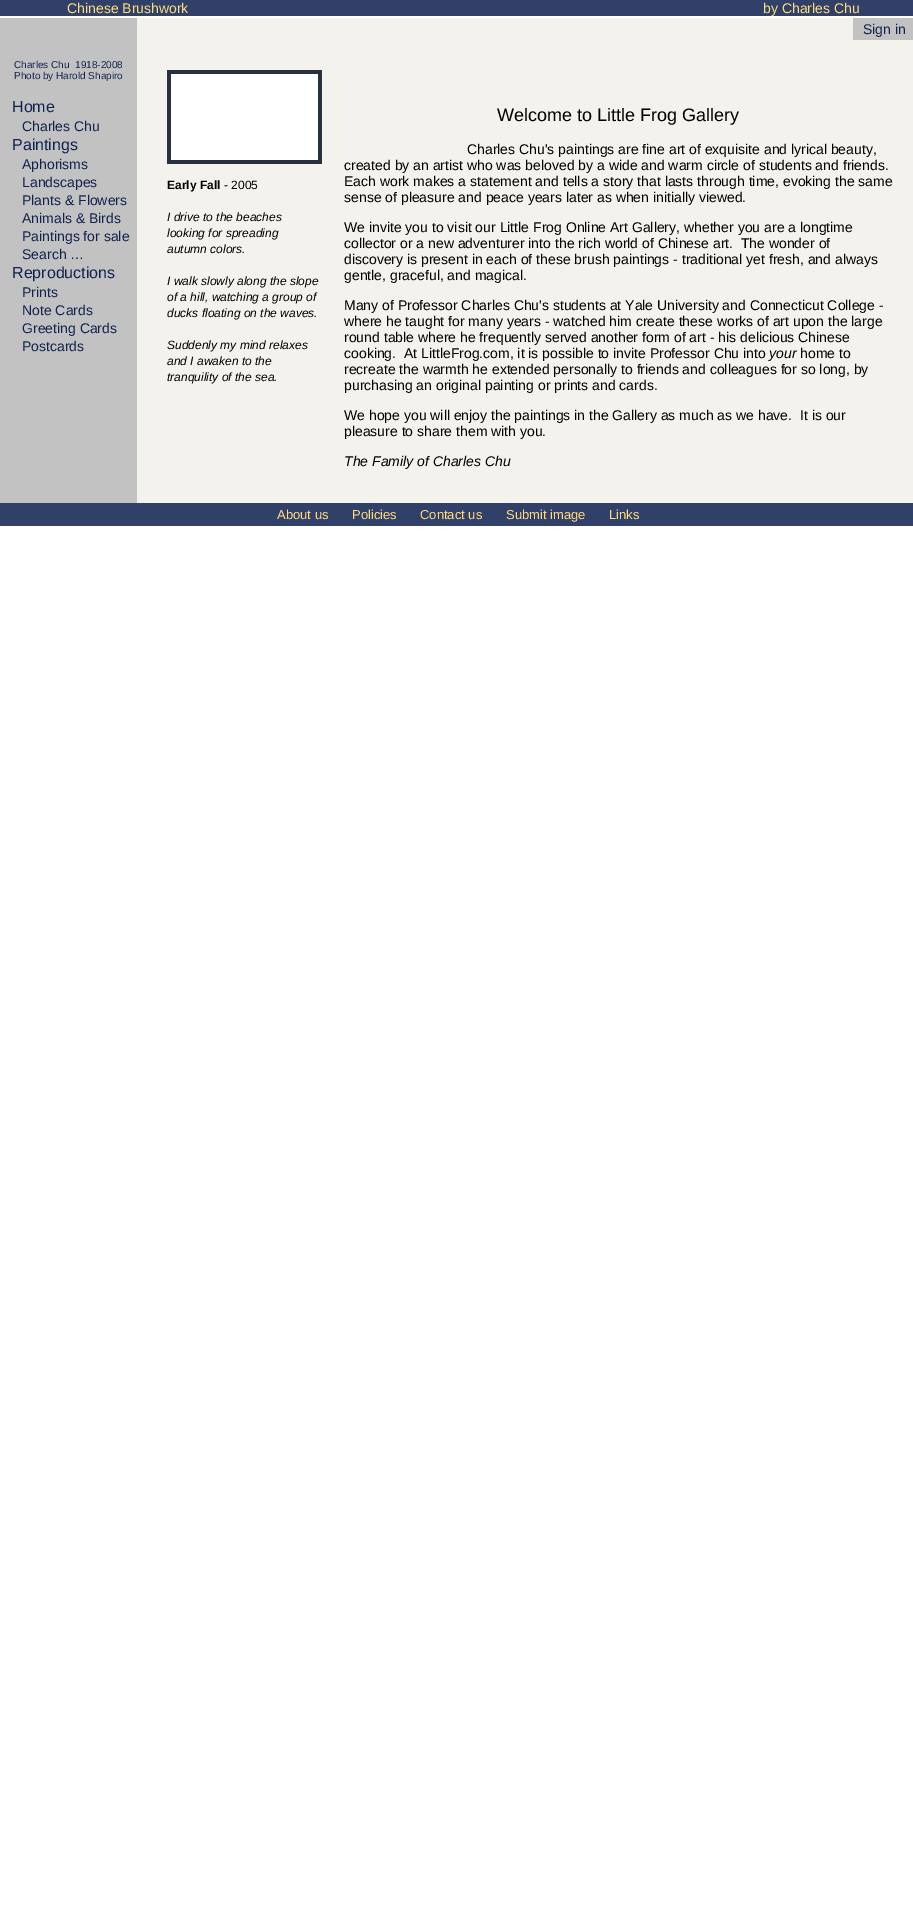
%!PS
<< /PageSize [913 1927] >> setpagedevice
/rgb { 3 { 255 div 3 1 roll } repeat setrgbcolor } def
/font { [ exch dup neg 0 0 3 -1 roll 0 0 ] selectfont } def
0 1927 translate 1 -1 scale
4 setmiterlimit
255 255 255 rgb
0 0 913 1927 rectfill
[
  [0 0 913 16 48 64 104]
  [0 18 137 485 194 194 194]
  [137 18 776 485 244 242 236]
  [853 18 60 22 194 194 194]
  [167 70 155 94 40 48 62]
  [171 74 147 86 255 255 255]
  [0 503 913 23 48 64 104]
] { aload pop rgb rectfill } forall
/LiberationSans-Regular 14 font
255 221 127 rgb
67 13 moveto (Chinese Brushwork) show
763 13 moveto (by Charles Chu) show
/LiberationSans-Regular 10 font
16 35 79 rgb
14 68 moveto (Charles Chu  1918-2008) show
14 79 moveto (Photo by Harold Shapiro) show
/LiberationSans-Regular 16 font
12 112 moveto (Home) show
/LiberationSans-Regular 14 font
22 131 moveto (Charles Chu) show
/LiberationSans-Regular 16 font
12 150 moveto (Paintings) show
/LiberationSans-Regular 14 font
[
  [(Aphorisms) 22 169]
  [(Landscapes) 22 187]
  [(Plants & Flowers) 22 205]
  [(Animals & Birds) 22 223]
  [(Paintings for sale) 22 241]
  [(Search …) 22 259]
] { aload pop moveto show } forall
/LiberationSans-Regular 16 font
12 278 moveto (Reproductions) show
/LiberationSans-Regular 14 font
[
  [(Prints) 22 297]
  [(Note Cards) 22 315]
  [(Greeting Cards) 22 333]
  [(Postcards) 22 351]
  [(Sign in) 863 34]
] { aload pop moveto show } forall
/LiberationSans-Bold 12 font
0 0 0 rgb
167 189 moveto (Early Fall) show
/LiberationSans-Regular 12 font
224 189 moveto (- 2005) show
/LiberationSans-Italic 12 font
[
  [(I drive to the beaches) 167 221]
  [(looking for spreading) 167 237]
  [(autumn colors.) 167 253]
  [(I walk slowly along the slope) 167 285]
  [(of a hill, watching a group of) 167 301]
  [(ducks floating on the waves.) 167 317]
  [(Suddenly my mind relaxes) 167 349]
  [(and I awaken to the) 167 365]
  [(tranquility of the sea.) 167 381]
] { aload pop moveto show } forall
/LiberationSans-Regular 18 font
497 121 moveto (Welcome to Little Frog Gallery) show
/LiberationSans-Regular 14 font
[
  [(Charles Chu's paintings are fine art of exquisite and lyrical beauty,) 467 154]
  [(created by an artist who was beloved by a wide and warm circle of students and friends.) 344 170]
  [(Each work makes a statement and tells a story that lasts through time, evoking the same) 344 186]
  [(sense of pleasure and peace years later as when initially viewed.) 344 202]
  [(We invite you to visit our Little Frog Online Art Gallery, whether you are a longtime) 344 232]
  [(collector or a new adventurer into the rich world of Chinese art.  The wonder of) 344 248]
  [(discovery is present in each of these brush paintings - traditional yet fresh, and always) 344 264]
  [(gentle, graceful, and magical.) 344 280]
  [(Many of Professor Charles Chu's students at Yale University and Connecticut College -) 344 310]
  [(where he taught for many years - watched him create these works of art upon the large) 344 326]
  [(round table where he frequently served another form of art - his delicious Chinese) 344 342]
  [(cooking.  At LittleFrog.com, it is possible to invite Professor Chu into) 344 358]
] { aload pop moveto show } forall
/LiberationSans-Italic 14 font
769 358 moveto (your) show
/LiberationSans-Regular 14 font
[
  [(home to) 800 358]
  [(recreate the warmth he extended personally to friends and colleagues for so long, by) 344 374]
  [(purchasing an original painting or prints and cards.) 344 390]
  [(We hope you will enjoy the paintings in the Gallery as much as we have.  It is our) 344 420]
  [(pleasure to share them with you.) 344 436]
] { aload pop moveto show } forall
/LiberationSans-Italic 14 font
344 466 moveto (The Family of Charles Chu) show
/LiberationSans-Regular 13 font
255 221 127 rgb
[
  [(About us) 277 519]
  [(Policies) 352 519]
  [(Contact us) 420 519]
  [(Submit image) 506 519]
  [(Links) 609 519]
] { aload pop moveto show } forall
showpage
